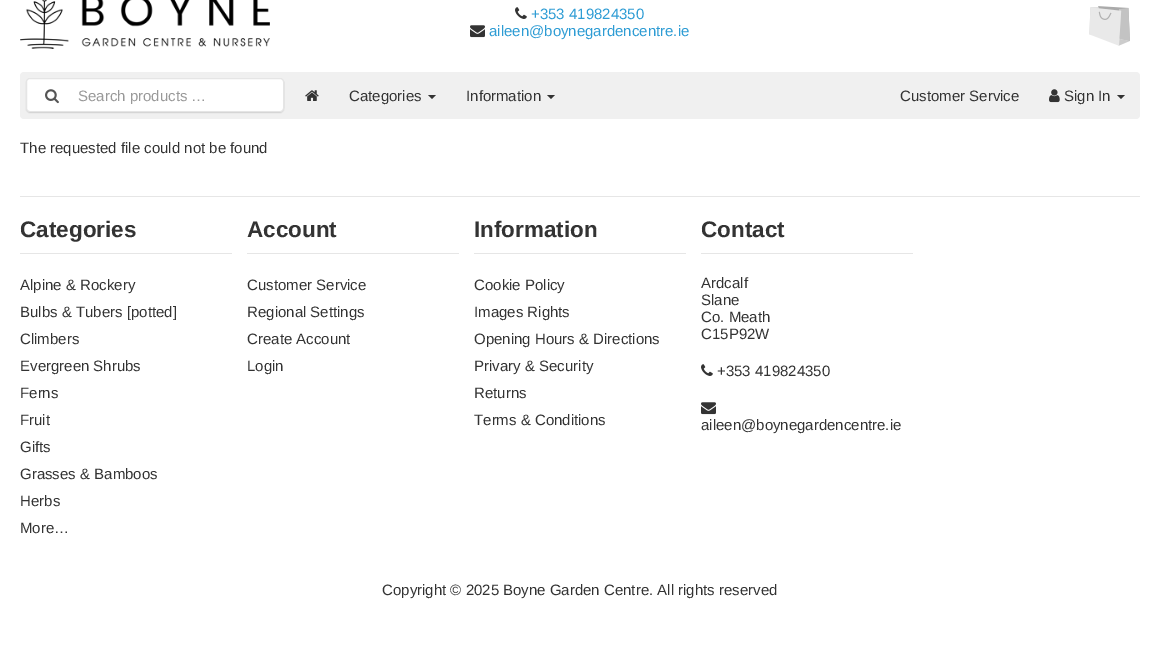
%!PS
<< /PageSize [1160 650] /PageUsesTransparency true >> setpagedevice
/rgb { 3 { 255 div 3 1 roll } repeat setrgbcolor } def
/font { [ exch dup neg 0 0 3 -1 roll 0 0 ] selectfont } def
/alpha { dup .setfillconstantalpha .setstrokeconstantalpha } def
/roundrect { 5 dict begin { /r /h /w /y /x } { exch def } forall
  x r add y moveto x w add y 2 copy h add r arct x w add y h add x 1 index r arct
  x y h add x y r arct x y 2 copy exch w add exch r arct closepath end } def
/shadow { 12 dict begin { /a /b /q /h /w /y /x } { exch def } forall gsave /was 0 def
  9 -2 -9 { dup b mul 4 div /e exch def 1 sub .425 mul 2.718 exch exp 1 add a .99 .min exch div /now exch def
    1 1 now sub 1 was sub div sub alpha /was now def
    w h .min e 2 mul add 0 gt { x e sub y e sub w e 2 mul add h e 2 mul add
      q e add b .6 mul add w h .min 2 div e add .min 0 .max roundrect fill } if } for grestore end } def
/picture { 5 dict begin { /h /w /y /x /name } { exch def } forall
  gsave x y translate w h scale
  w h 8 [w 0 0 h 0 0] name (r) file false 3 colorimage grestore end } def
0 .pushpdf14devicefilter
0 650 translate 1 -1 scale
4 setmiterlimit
255 255 255 rgb
0 0 1160 650 rectfill
(img/1.rgb) 20 0 250 49 picture
(img/2.rgb) 515 7 12 12 picture
(img/3.rgb) 470 25 15 13 picture
(img/4.rgb) 1089 6 41 40 picture
240 240 240 rgb
20 72 1120 47 4 roundrect fill
0 0 0 rgb
26 79 258 34 4 0.5 0.1 shadow
255 255 255 rgb
26 78 258 34 4 roundrect fill
0.1 alpha
0 0 0 rgb
26.5 78.5 257 33 3.5 roundrect stroke
1 alpha
(img/5.rgb) 45 89 14 15 picture
(img/6.rgb) 305 90 14 11 picture
51 51 51 rgb
428 95 moveto 436 95 lineto 432 99 lineto closepath fill
547 95 moveto 555 95 lineto 551 99 lineto closepath fill
(img/7.rgb) 1049 89 11 14 picture
1117 95 moveto 1125 95 lineto 1121 99 lineto closepath fill
[
  [20 196 1120 1 230 230 230]
  [20 253 212 1 230 230 230]
  [247 253 212 1 230 230 230]
  [474 253 212 1 230 230 230]
  [701 253 212 1 230 230 230]
] { aload pop rgb rectfill } forall
(img/2.rgb) 701 364 12 12 picture
(img/3.rgb) 701 402 15 13 picture
/LiberationSans-Regular 15 font
46 156 212 rgb
531 19 moveto (+353 419824350) show
489 36 moveto (aileen@boynegardencentre.ie) show
153 153 153 rgb
78 101 moveto (Search products …) show
51 51 51 rgb
[
  [(Categories) 349 101]
  [(Information) 466 101]
  [(Customer Service) 900 101]
  [(Sign In) 1064 101]
  [(The requested file could not be found) 20 153]
] { aload pop moveto show } forall
/LiberationSans-Bold 22.5 font
20 237 moveto (Categories) show
/LiberationSans-Regular 15 font
[
  [(Alpine & Rockery) 20 290]
  [(Bulbs & Tubers [potted]) 20 317]
  [(Climbers) 20 344]
  [(Evergreen Shrubs) 20 371]
  [(Ferns) 20 398]
  [(Fruit) 20 425]
  [(Gifts) 20 452]
  [(Grasses & Bamboos) 20 479]
  [(Herbs) 20 506]
  [(More…) 20 533]
] { aload pop moveto show } forall
/LiberationSans-Bold 22.5 font
247 237 moveto (Account) show
/LiberationSans-Regular 15 font
[
  [(Customer Service) 247 290]
  [(Regional Settings) 247 317]
  [(Create Account) 247 344]
  [(Login) 247 371]
] { aload pop moveto show } forall
/LiberationSans-Bold 22.5 font
474 237 moveto (Information) show
/LiberationSans-Regular 15 font
[
  [(Cookie Policy) 474 290]
  [(Images Rights) 474 317]
  [(Opening Hours & Directions) 474 344]
  [(Privary & Security) 474 371]
  [(Returns) 474 398]
  [(Terms & Conditions) 474 425]
] { aload pop moveto show } forall
/LiberationSans-Bold 22.5 font
701 237 moveto (Contact) show
/LiberationSans-Regular 15 font
[
  [(Ardcalf) 701 288]
  [(Slane) 701 305]
  [(Co. Meath) 701 322]
  [(C15P92W) 701 339]
  [(+353 419824350) 717 376]
  [(aileen@boynegardencentre.ie) 701 430]
  [(Copyright © 2025 Boyne Garden Centre. All rights reserved) 382 595]
] { aload pop moveto show } forall
.poppdf14devicefilter showpage
